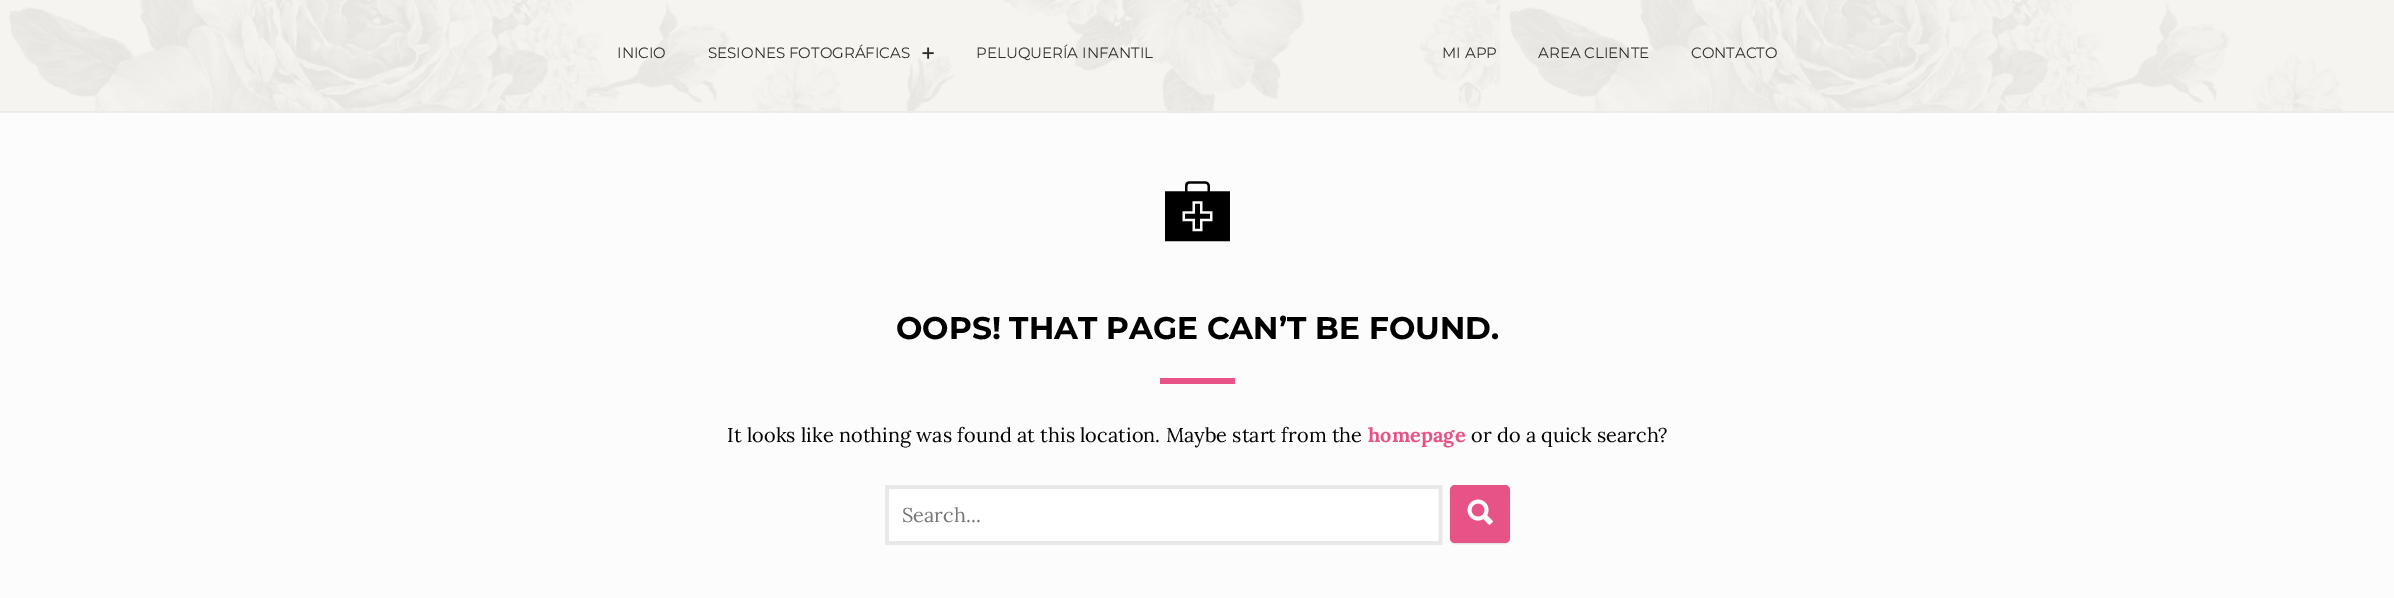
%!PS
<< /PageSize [2394 598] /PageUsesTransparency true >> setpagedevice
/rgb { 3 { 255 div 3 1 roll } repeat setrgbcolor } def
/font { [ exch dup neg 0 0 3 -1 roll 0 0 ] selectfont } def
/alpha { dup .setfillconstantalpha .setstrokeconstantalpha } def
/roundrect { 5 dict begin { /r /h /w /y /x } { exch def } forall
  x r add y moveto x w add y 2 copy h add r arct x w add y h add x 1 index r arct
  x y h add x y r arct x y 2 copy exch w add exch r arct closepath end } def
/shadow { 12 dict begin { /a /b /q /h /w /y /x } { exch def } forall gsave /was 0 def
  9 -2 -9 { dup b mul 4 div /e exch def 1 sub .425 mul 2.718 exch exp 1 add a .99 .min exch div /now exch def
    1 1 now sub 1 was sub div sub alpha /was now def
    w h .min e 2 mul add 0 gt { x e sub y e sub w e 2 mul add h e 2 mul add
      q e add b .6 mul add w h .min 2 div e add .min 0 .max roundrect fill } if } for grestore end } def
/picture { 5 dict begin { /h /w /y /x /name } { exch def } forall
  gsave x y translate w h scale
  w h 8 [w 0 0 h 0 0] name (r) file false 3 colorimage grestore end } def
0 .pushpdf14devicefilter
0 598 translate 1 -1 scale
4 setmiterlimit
252 252 252 rgb
0 0 2394 598 rectfill
232 232 232 rgb
0 112 2394 1 rectfill
(img/1.rgb) 0 0 2394 113 picture
235 235 235 rgb
0 111 2394 1 rectfill
(img/2.rgb) 922 47 12 12 picture
(img/3.rgb) 1165 181 65 61 picture
232 83 135 rgb
1160 378 75 6 rectfill
255 255 255 rgb
885 485 558 60 1 roundrect fill
232 232 232 rgb
3.8 setlinewidth
887 487 moveto 1440.5 487 lineto 1440.5 543 lineto 887 543 lineto closepath stroke
15 15 15 rgb
1450 486 60 58 5 0.5 0.12 shadow
232 83 135 rgb
1450 485 60 58 5 roundrect fill
(img/4.rgb) 1467 499 26 26 picture
/Montserrat-Regular 15 font
46 45 41 rgb
[
  [(INICIO) 617 58]
  [(SESIONES FOTOGRÁFICAS) 708 58]
  [(PELUQUERÍA INFANTIL) 976 58]
  [(MI APP) 1442 58]
  [(AREA CLIENTE) 1538 58]
  [(CONTACTO) 1691 58]
] { aload pop moveto show } forall
/Montserrat-Bold 31.25 font
0 0 0 rgb
896 339 moveto (OOPS! THAT PAGE CAN’T BE FOUND.) show
/Lora-Regular 20 font
727 442 moveto (It looks like nothing was found at this location. Maybe start from the) show
/Lora-Bold 20 font
232 83 135 rgb
1368 442 moveto (homepage) show
/Lora-Regular 20 font
0 0 0 rgb
1471 442 moveto (or do a quick search?) show
117 117 117 rgb
902 522 moveto (Search...) show
.poppdf14devicefilter showpage
